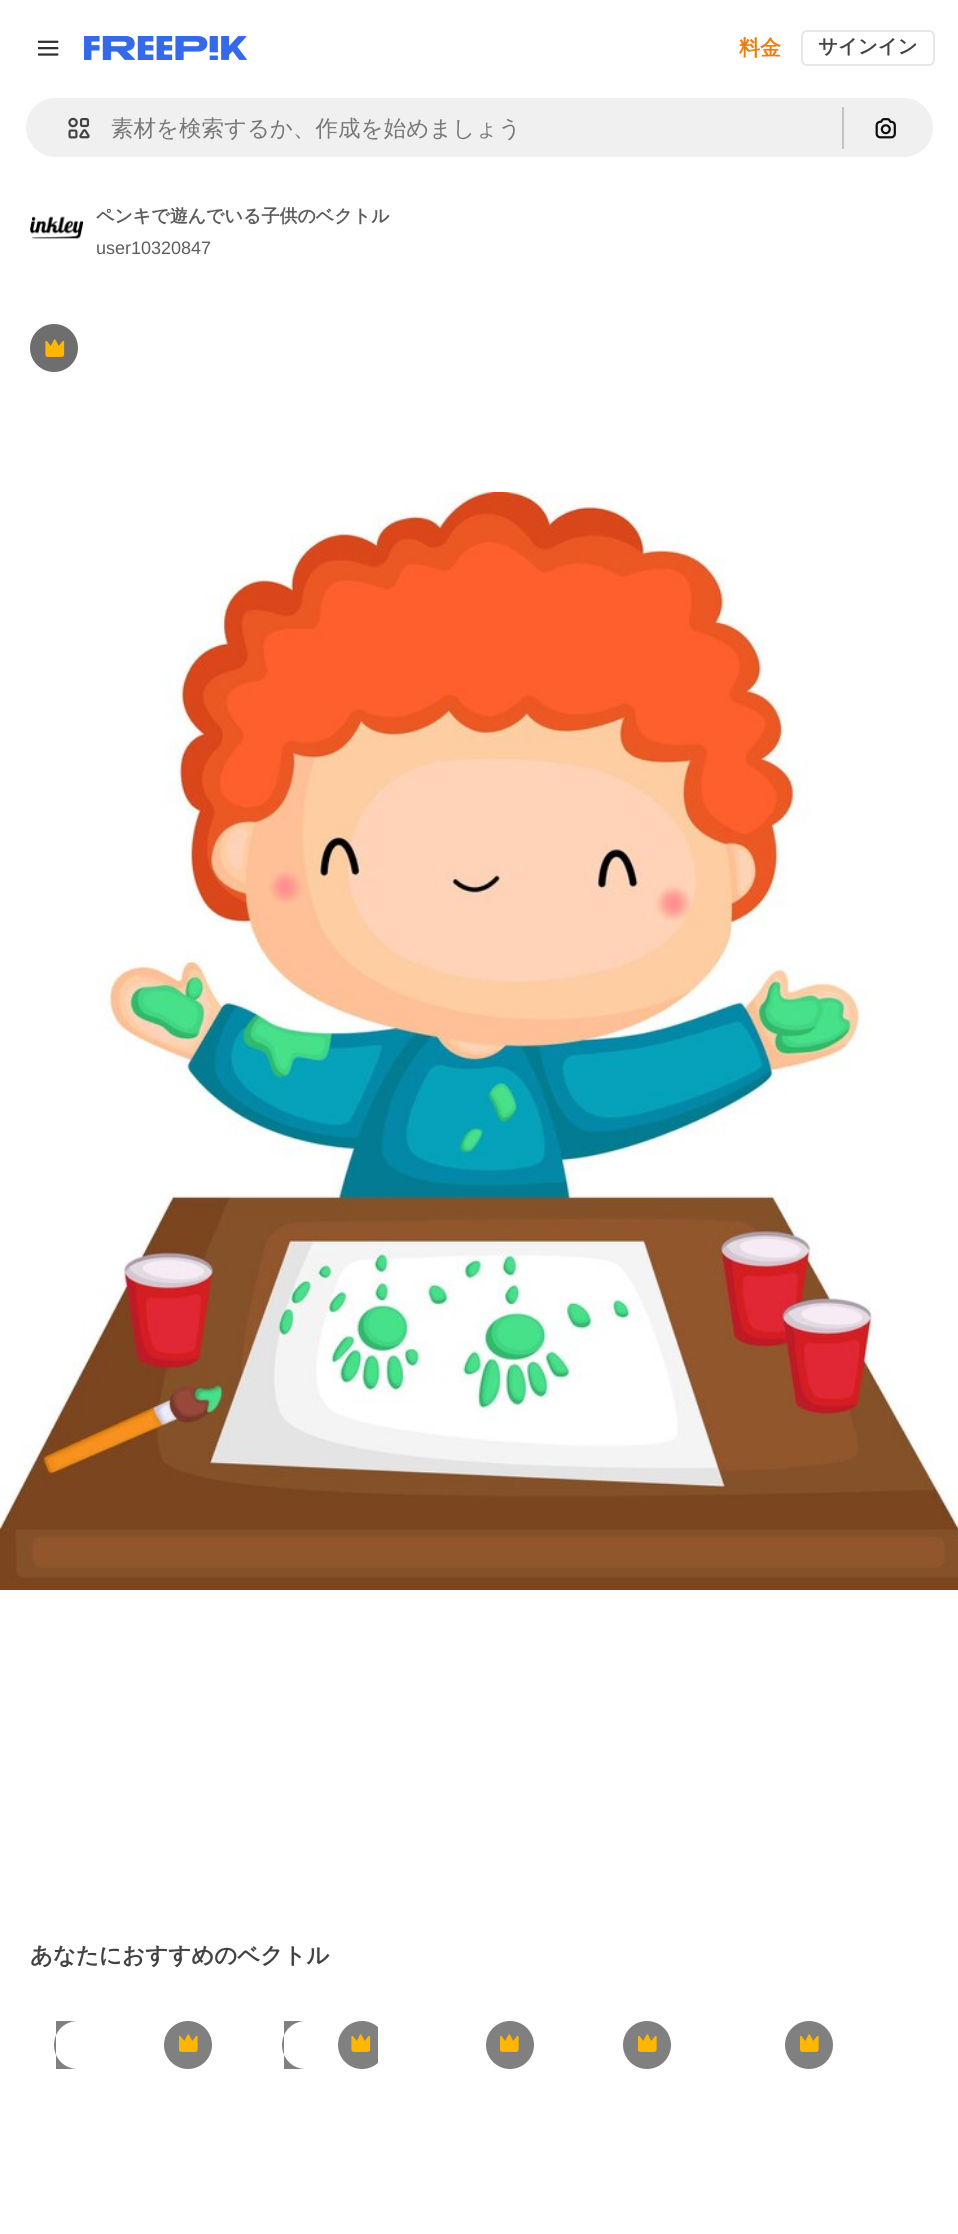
import math
import cairo

surface = cairo.ImageSurface(cairo.Format.RGB24, 958, 2234)
ctx = cairo.Context(surface)
options = cairo.FontOptions()
options.set_hint_metrics(cairo.HintMetrics.OFF)
options.set_hint_style(cairo.HintStyle.NONE)
ctx.set_font_options(options)
ctx.set_miter_limit(4)


def ink(r, g, b):
    ctx.set_source_rgb(r / 255, g / 255, b / 255)


def write(x, y, s, family, size, color, bold=False, italic=False):
    ctx.select_font_face(family, cairo.FontSlant.ITALIC if italic else cairo.FontSlant.NORMAL, cairo.FontWeight.BOLD if bold else cairo.FontWeight.NORMAL)
    ctx.set_font_size(size)
    ink(*color)
    ctx.move_to(x, y)
    ctx.show_text(s)


def block(x, y, w, h, *color):
    ink(*color)
    ctx.rectangle(x, y, w, h)
    ctx.fill()


def round_path(x, y, w, h, r):
    ctx.new_sub_path()
    for i, (u, v) in enumerate([(x + w - r, y + h - r), (x + r, y + h - r), (x + r, y + r), (x + w - r, y + r)]):
        ctx.arc(u, v, r, i * math.pi / 2, (i + 1) * math.pi / 2)
    ctx.close_path()


def paste(path, x, y, w, h):
    ctx.save()
    ctx.set_source_surface(cairo.ImageSurface.create_from_png(path), x, y)
    ctx.rectangle(x, y, w, h)
    ctx.fill()
    ctx.restore()


s1 = dict(family="WenQuanYi Zen Hei", size=21, color=(234, 126, 17), bold=True)
s2 = dict(family="WenQuanYi Zen Hei", size=19.5, color=(66, 66, 66), bold=True)
s3 = dict(family="WenQuanYi Zen Hei Medium", size=22.5, color=(119, 119, 119))
s4 = dict(family="WenQuanYi Zen Hei", size=18, color=(92, 92, 92), bold=True)
s5 = dict(family="Liberation Sans", size=18, color=(92, 92, 92))
s6 = dict(family="WenQuanYi Zen Hei", size=22.5, color=(66, 66, 66), bold=True)

ink(255, 255, 255)
ctx.paint()
paste("pic1.png", 38, 40, 21, 16)
paste("pic2.png", 84, 36, 163, 24)
write(739, 55, "料金", **s1)
round_path(802, 31, 132, 34, 5)
ink(231, 231, 231)
ctx.stroke()
write(818, 53, "サインイン", **s2)
ink(240, 240, 240)
round_path(25, 97, 909, 61, 30.5)
ctx.fill_preserve()
ink(255, 255, 255)
ctx.stroke()
paste("pic3.png", 68, 117, 22, 22)
write(111, 136, "素材を検索するか、作成を始めましょう", **s3)
block(842, 107, 2, 42, 195, 195, 195)
paste("pic4.png", 875, 118, 21, 21)
paste("pic5.png", 30, 216, 54, 23)
write(96, 222, "ペンキで遊んでいる子供のベクトル", **s4)
write(96, 254, "user10320847", **s5)
ink(110, 110, 110)
ctx.new_path()
ctx.arc(54, 348, 24, 0, 2 * math.pi)
ctx.fill()
paste("pic6.png", 45, 339, 20, 18)
paste("pic7.png", 0, 492, 958, 1098)
write(30, 1963, "あなたにおすすめのベクトル", **s6)
ink(128, 128, 128)
ctx.new_path()
ctx.move_to(78, 2021)
ctx.line_to(56, 2021)
ctx.line_to(56, 2069)
ctx.line_to(78, 2069)
ctx.curve_to(64.5, 2069, 54, 2058.5, 54, 2045)
ctx.curve_to(54, 2031.5, 64.5, 2021, 78, 2021)
ctx.close_path()
ctx.fill()
ctx.arc(188, 2045, 24, 0, 2 * math.pi)
ctx.fill()
paste("pic8.png", 179, 2034, 19, 18)
ctx.new_path()
ctx.move_to(306, 2021)
ctx.line_to(284, 2021)
ctx.line_to(284, 2069)
ctx.line_to(306, 2069)
ctx.curve_to(292.5, 2069, 282, 2058.5, 282, 2045)
ctx.curve_to(282, 2031.5, 292.5, 2021, 306, 2021)
ctx.close_path()
ctx.fill()
ctx.save()
round_path(314, 1997, 64, 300, 24)
ctx.clip()
ctx.arc(362, 2045, 24, 0, 2 * math.pi)
ctx.fill()
ctx.restore()
paste("pic9.png", 351, 2034, 20, 18)
ctx.arc(510, 2045, 24, 0, 2 * math.pi)
ctx.fill()
paste("pic8.png", 500, 2034, 19, 18)
ctx.arc(647, 2045, 24, 0, 2 * math.pi)
ctx.fill()
paste("pic8.png", 638, 2034, 19, 18)
ctx.arc(809, 2045, 24, 0, 2 * math.pi)
ctx.fill()
paste("pic8.png", 800, 2034, 19, 18)
surface.write_to_png("screenshot.png")
